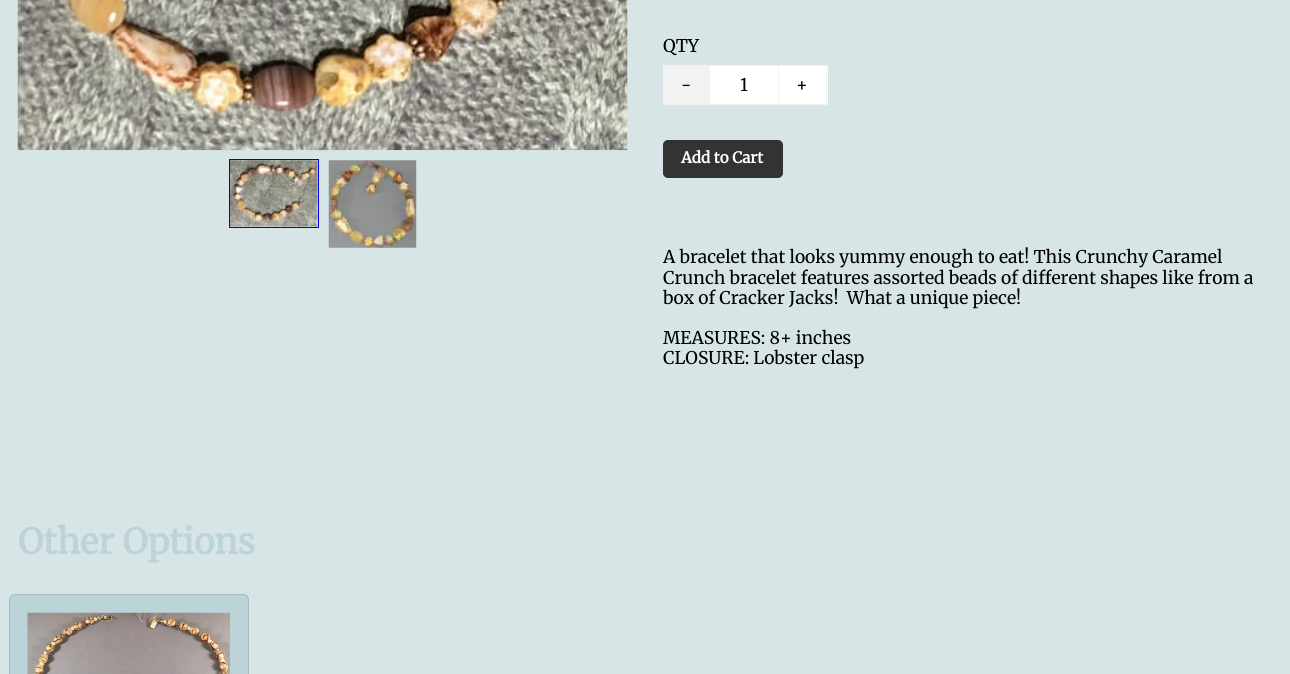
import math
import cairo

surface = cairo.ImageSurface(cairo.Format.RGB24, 1290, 674)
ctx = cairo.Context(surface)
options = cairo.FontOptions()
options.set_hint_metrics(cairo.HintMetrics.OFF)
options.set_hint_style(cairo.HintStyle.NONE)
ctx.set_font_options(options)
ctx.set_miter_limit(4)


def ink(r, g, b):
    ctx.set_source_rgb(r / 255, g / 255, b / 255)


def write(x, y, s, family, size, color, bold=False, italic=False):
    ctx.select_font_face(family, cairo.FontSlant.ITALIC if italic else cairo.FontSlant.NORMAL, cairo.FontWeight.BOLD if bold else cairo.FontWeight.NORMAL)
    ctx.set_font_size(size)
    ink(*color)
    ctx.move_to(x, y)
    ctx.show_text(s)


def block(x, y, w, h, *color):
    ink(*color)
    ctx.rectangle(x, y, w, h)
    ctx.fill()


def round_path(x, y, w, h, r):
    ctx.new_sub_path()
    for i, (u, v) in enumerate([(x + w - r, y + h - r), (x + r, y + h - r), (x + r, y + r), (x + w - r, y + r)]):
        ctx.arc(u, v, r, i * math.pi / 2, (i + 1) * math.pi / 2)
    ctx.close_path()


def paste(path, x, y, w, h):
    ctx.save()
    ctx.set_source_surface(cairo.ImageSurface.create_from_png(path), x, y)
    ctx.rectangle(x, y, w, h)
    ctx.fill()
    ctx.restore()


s1 = dict(family="Merriweather Light", size=17.5, color=(0, 0, 0))
s2 = dict(family="Merriweather", size=15.25, color=(255, 255, 255), bold=True)
s3 = dict(family="Merriweather", size=35, color=(188, 211, 215), bold=True)

ink(215, 229, 231)
ctx.paint()
paste("pic1.png", 17, 0, 611, 151)
ctx.rectangle(229.5, 159.5, 89, 68)
ink(0, 0, 238)
ctx.set_line_width(1)
ctx.stroke()
paste("pic2.png", 230, 160, 88, 67)
paste("pic3.png", 328, 160, 89, 88)
write(663, 52, "QTY", **s1)
block(663, 65, 46, 40, 242, 242, 242)
write(681, 91, "-", **s1)
ink(255, 255, 255)
ctx.rectangle(709.5, 65.5, 69, 39)
ctx.fill_preserve()
ink(242, 242, 242)
ctx.stroke()
write(740, 91, "1", **s1)
block(779, 66, 49, 38, 255, 255, 255)
block(779, 65, 49, 1, 242, 242, 242)
block(826, 65, 1, 40, 242, 242, 242)
block(779, 104, 49, 1, 242, 242, 242)
write(796, 91, "+", **s1)
ink(51, 51, 51)
round_path(663.5, 140.5, 119, 37, 4.5)
ctx.fill_preserve()
ctx.stroke()
write(681, 163, "Add to Cart", **s2)
write(663, 263, "A bracelet that looks yummy enough to eat! This Crunchy Caramel", **s1)
write(663, 284, "Crunch bracelet features assorted beads of different shapes like from a", **s1)
write(663, 304, "box of Cracker Jacks!  What a unique piece!", **s1)
write(663, 344, "MEASURES: 8+ inches", **s1)
write(663, 364, "CLOSURE: Lobster clasp", **s1)
write(18, 554, "Other Options", **s3)
round_path(9, 594, 240, 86, 6)
ctx.fill()
round_path(9.5, 594.5, 239, 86, 5.5)
ctx.set_source_rgba(0.478, 0.478, 0.478, 0.3)
ctx.stroke()
paste("pic4.png", 27, 612, 203, 62)
surface.write_to_png("screenshot.png")
